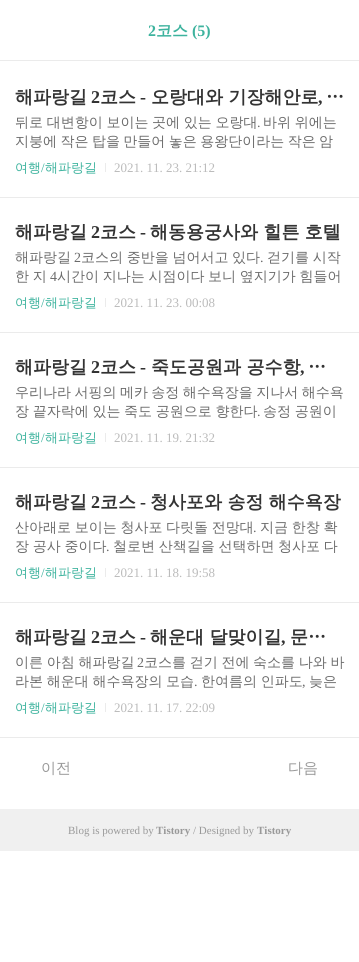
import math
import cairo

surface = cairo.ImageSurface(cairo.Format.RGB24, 359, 962)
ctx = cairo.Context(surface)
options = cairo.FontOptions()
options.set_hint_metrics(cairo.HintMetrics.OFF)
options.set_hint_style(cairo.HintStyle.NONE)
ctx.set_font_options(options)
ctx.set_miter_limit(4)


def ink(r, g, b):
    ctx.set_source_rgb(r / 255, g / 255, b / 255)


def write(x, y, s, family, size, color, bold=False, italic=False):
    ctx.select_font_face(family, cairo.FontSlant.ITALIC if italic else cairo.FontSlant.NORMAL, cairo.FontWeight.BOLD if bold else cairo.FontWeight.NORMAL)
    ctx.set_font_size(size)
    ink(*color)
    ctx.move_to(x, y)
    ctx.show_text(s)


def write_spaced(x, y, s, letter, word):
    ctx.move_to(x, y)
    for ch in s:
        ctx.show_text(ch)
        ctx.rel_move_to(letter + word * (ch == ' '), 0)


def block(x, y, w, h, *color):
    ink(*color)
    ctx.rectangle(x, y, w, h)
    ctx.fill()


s1 = dict(family="Liberation Serif", size=16, color=(61, 179, 158), bold=True)
s2 = dict(family="WenQuanYi Zen Hei", size=16, color=(61, 179, 158), bold=True)
s3 = dict(family="WenQuanYi Zen Hei", size=18, color=(51, 51, 51), bold=True)
s4 = dict(family="Liberation Serif", size=18, color=(51, 51, 51), bold=True)
s5 = dict(family="Liberation Serif", size=14, color=(107, 107, 107))
s6 = dict(family="WenQuanYi Zen Hei Medium", size=13, color=(61, 179, 158))
s7 = dict(family="Liberation Serif", size=13, color=(61, 179, 158))
s8 = dict(family="Liberation Serif", size=13, color=(187, 187, 187))
s9 = dict(family="WenQuanYi Zen Hei Medium", size=14, color=(107, 107, 107))
s10 = dict(family="WenQuanYi Zen Hei Medium", size=15, color=(153, 153, 153))
s11 = dict(family="Liberation Serif", size=11, color=(153, 153, 153))
s12 = dict(family="Liberation Serif", size=11, color=(153, 153, 153), bold=True)

ink(255, 255, 255)
ctx.paint()
write(148, 36, "2", **s1)
write(156, 36, "코스", **s2)
write(192, 36, "(5)", **s1)
block(0, 60, 359, 1, 235, 235, 235)
block(0, 197, 359, 1, 235, 235, 235)
write(15, 103, "해파랑길", **s3)
write(91, 103, "2", **s4)
write(100, 103, "코스", **s3)
write(151, 103, "오랑대와 기장해안로", **s3)
write(326, 103, "…", **s3)
write(140, 103, "-", **s4)
write(318, 103, ",", **s4)
ctx.select_font_face("WenQuanYi Zen Hei Medium")
ctx.set_font_size(14)
ink(107, 107, 107)
write_spaced(15, 127, "뒤로 대변항이 보이는 곳에 있는 오랑대", 0, -0.5)
write(257, 127, ".", **s5)
ctx.select_font_face("WenQuanYi Zen Hei Medium")
write_spaced(263, 127, "바위 위에는", 0, -0.5)
write_spaced(15, 146, "지붕에 작은 탑을 만들어 놓은 용왕단이라는 작은 암", 0, -0.75)
write(15, 172, "여행 해파랑길", **s6)
write(41, 172, "/", **s7)
block(105, 163, 1, 9, 235, 235, 235)
write(114, 172, "2021. 11. 23. 21:12", **s8)
block(0, 332, 359, 1, 235, 235, 235)
write(15, 238, "해파랑길", **s3)
write(91, 238, "2", **s4)
write(100, 238, "코스", **s3)
write(140, 238, "-", **s4)
write(150, 238, "해동용궁사와 힐튼 호텔", **s3)
write(15, 262, "해파랑길", **s9)
write(74, 262, "2", **s5)
ctx.select_font_face("WenQuanYi Zen Hei Medium")
write_spaced(81, 262, "코스의 중반을 넘어서고 있다", 0, -0.5)
write(260, 262, ".", **s5)
ctx.select_font_face("WenQuanYi Zen Hei Medium")
write_spaced(267, 262, "걷기를 시작", 0, -0.5)
write_spaced(15, 281, "한 지", 0, -0.5)
write(50, 281, "4", **s5)
ctx.select_font_face("WenQuanYi Zen Hei Medium")
write_spaced(57, 281, "시간이 지나는 시점이다 보니 옆지기가 힘들어", 0, -0.5)
write(15, 307, "여행 해파랑길", **s6)
write(41, 307, "/", **s7)
block(105, 298, 1, 9, 235, 235, 235)
write(114, 307, "2021. 11. 23. 00:08", **s8)
block(0, 467, 359, 1, 235, 235, 235)
write(15, 373, "해파랑길", **s3)
write(91, 373, "2", **s4)
write(100, 373, "코스", **s3)
write(151, 373, "죽도공원과 공수항", **s3)
write(308, 373, "…", **s3)
write(140, 373, "-", **s4)
write(300, 373, ",", **s4)
ctx.select_font_face("WenQuanYi Zen Hei Medium")
ctx.set_font_size(14)
ink(107, 107, 107)
write_spaced(15, 397, "우리나라 서핑의 메카 송정 해수욕장을 지나서 해수욕", 0, -0.75)
write_spaced(15, 416, "장 끝자락에 있는 죽도 공원으로 향한다", 0, -0.5)
write(257, 416, ".", **s5)
ctx.select_font_face("WenQuanYi Zen Hei Medium")
write_spaced(263, 416, "송정 공원이", 0, -0.5)
write(15, 442, "여행 해파랑길", **s6)
write(41, 442, "/", **s7)
block(105, 433, 1, 9, 235, 235, 235)
write(114, 442, "2021. 11. 19. 21:32", **s8)
block(0, 602, 359, 1, 235, 235, 235)
write(15, 508, "해파랑길", **s3)
write(91, 508, "2", **s4)
write(100, 508, "코스", **s3)
write(140, 508, "-", **s4)
write(150, 508, "청사포와 송정 해수욕장", **s3)
ctx.select_font_face("WenQuanYi Zen Hei Medium")
ctx.set_font_size(14)
ink(107, 107, 107)
write_spaced(15, 532, "산아래로 보이는 청사포 다릿돌 전망대", 0, -0.5)
write(253, 532, ".", **s5)
ctx.select_font_face("WenQuanYi Zen Hei Medium")
write_spaced(260, 532, "지금 한창 확", 0, -0.5)
write_spaced(15, 551, "장 공사 중이다", 0, -0.5)
write(106, 551, ".", **s5)
ctx.select_font_face("WenQuanYi Zen Hei Medium")
write_spaced(113, 551, "철로변 산책길을 선택하면 청사포 다", 0, -0.5)
write(15, 577, "여행 해파랑길", **s6)
write(41, 577, "/", **s7)
block(105, 568, 1, 9, 235, 235, 235)
write(114, 577, "2021. 11. 18. 19:58", **s8)
block(0, 737, 359, 1, 235, 235, 235)
write(15, 643, "해파랑길", **s3)
write(91, 643, "2", **s4)
write(100, 643, "코스", **s3)
write(140, 643, "-", **s4)
write(150, 643, "해운대 달맞이길", **s3)
write(290, 643, "문…", **s3)
write(281, 643, ",", **s4)
ctx.select_font_face("WenQuanYi Zen Hei Medium")
ctx.set_font_size(14)
ink(107, 107, 107)
write_spaced(15, 667, "이른 아침 해파랑길", 0, -0.5)
write(137, 667, "2", **s5)
ctx.select_font_face("WenQuanYi Zen Hei Medium")
write_spaced(144, 667, "코스를 걷기 전에 숙소를 나와 바", 0, -0.5)
write_spaced(15, 686, "라본 해운대 해수욕장의 모습", 0, -0.5)
write(194, 686, ".", **s5)
ctx.select_font_face("WenQuanYi Zen Hei Medium")
write_spaced(201, 686, "한여름의 인파도", 0, -0.5)
write(302, 686, ",", **s5)
write(309, 686, "늦은", **s9)
write(15, 712, "여행 해파랑길", **s6)
write(41, 712, "/", **s7)
block(105, 703, 1, 9, 235, 235, 235)
write(114, 712, "2021. 11. 17. 22:09", **s8)
write(41, 773, "이전", **s10)
write(288, 773, "다음", **s10)
block(0, 809, 359, 42, 240, 240, 240)
write(68, 834, "Blog is powered by", **s11)
write(156, 834, "Tistory", **s12)
write(193, 834, "/ Designed by", **s11)
write(257, 834, "Tistory", **s12)
surface.write_to_png("screenshot.png")
